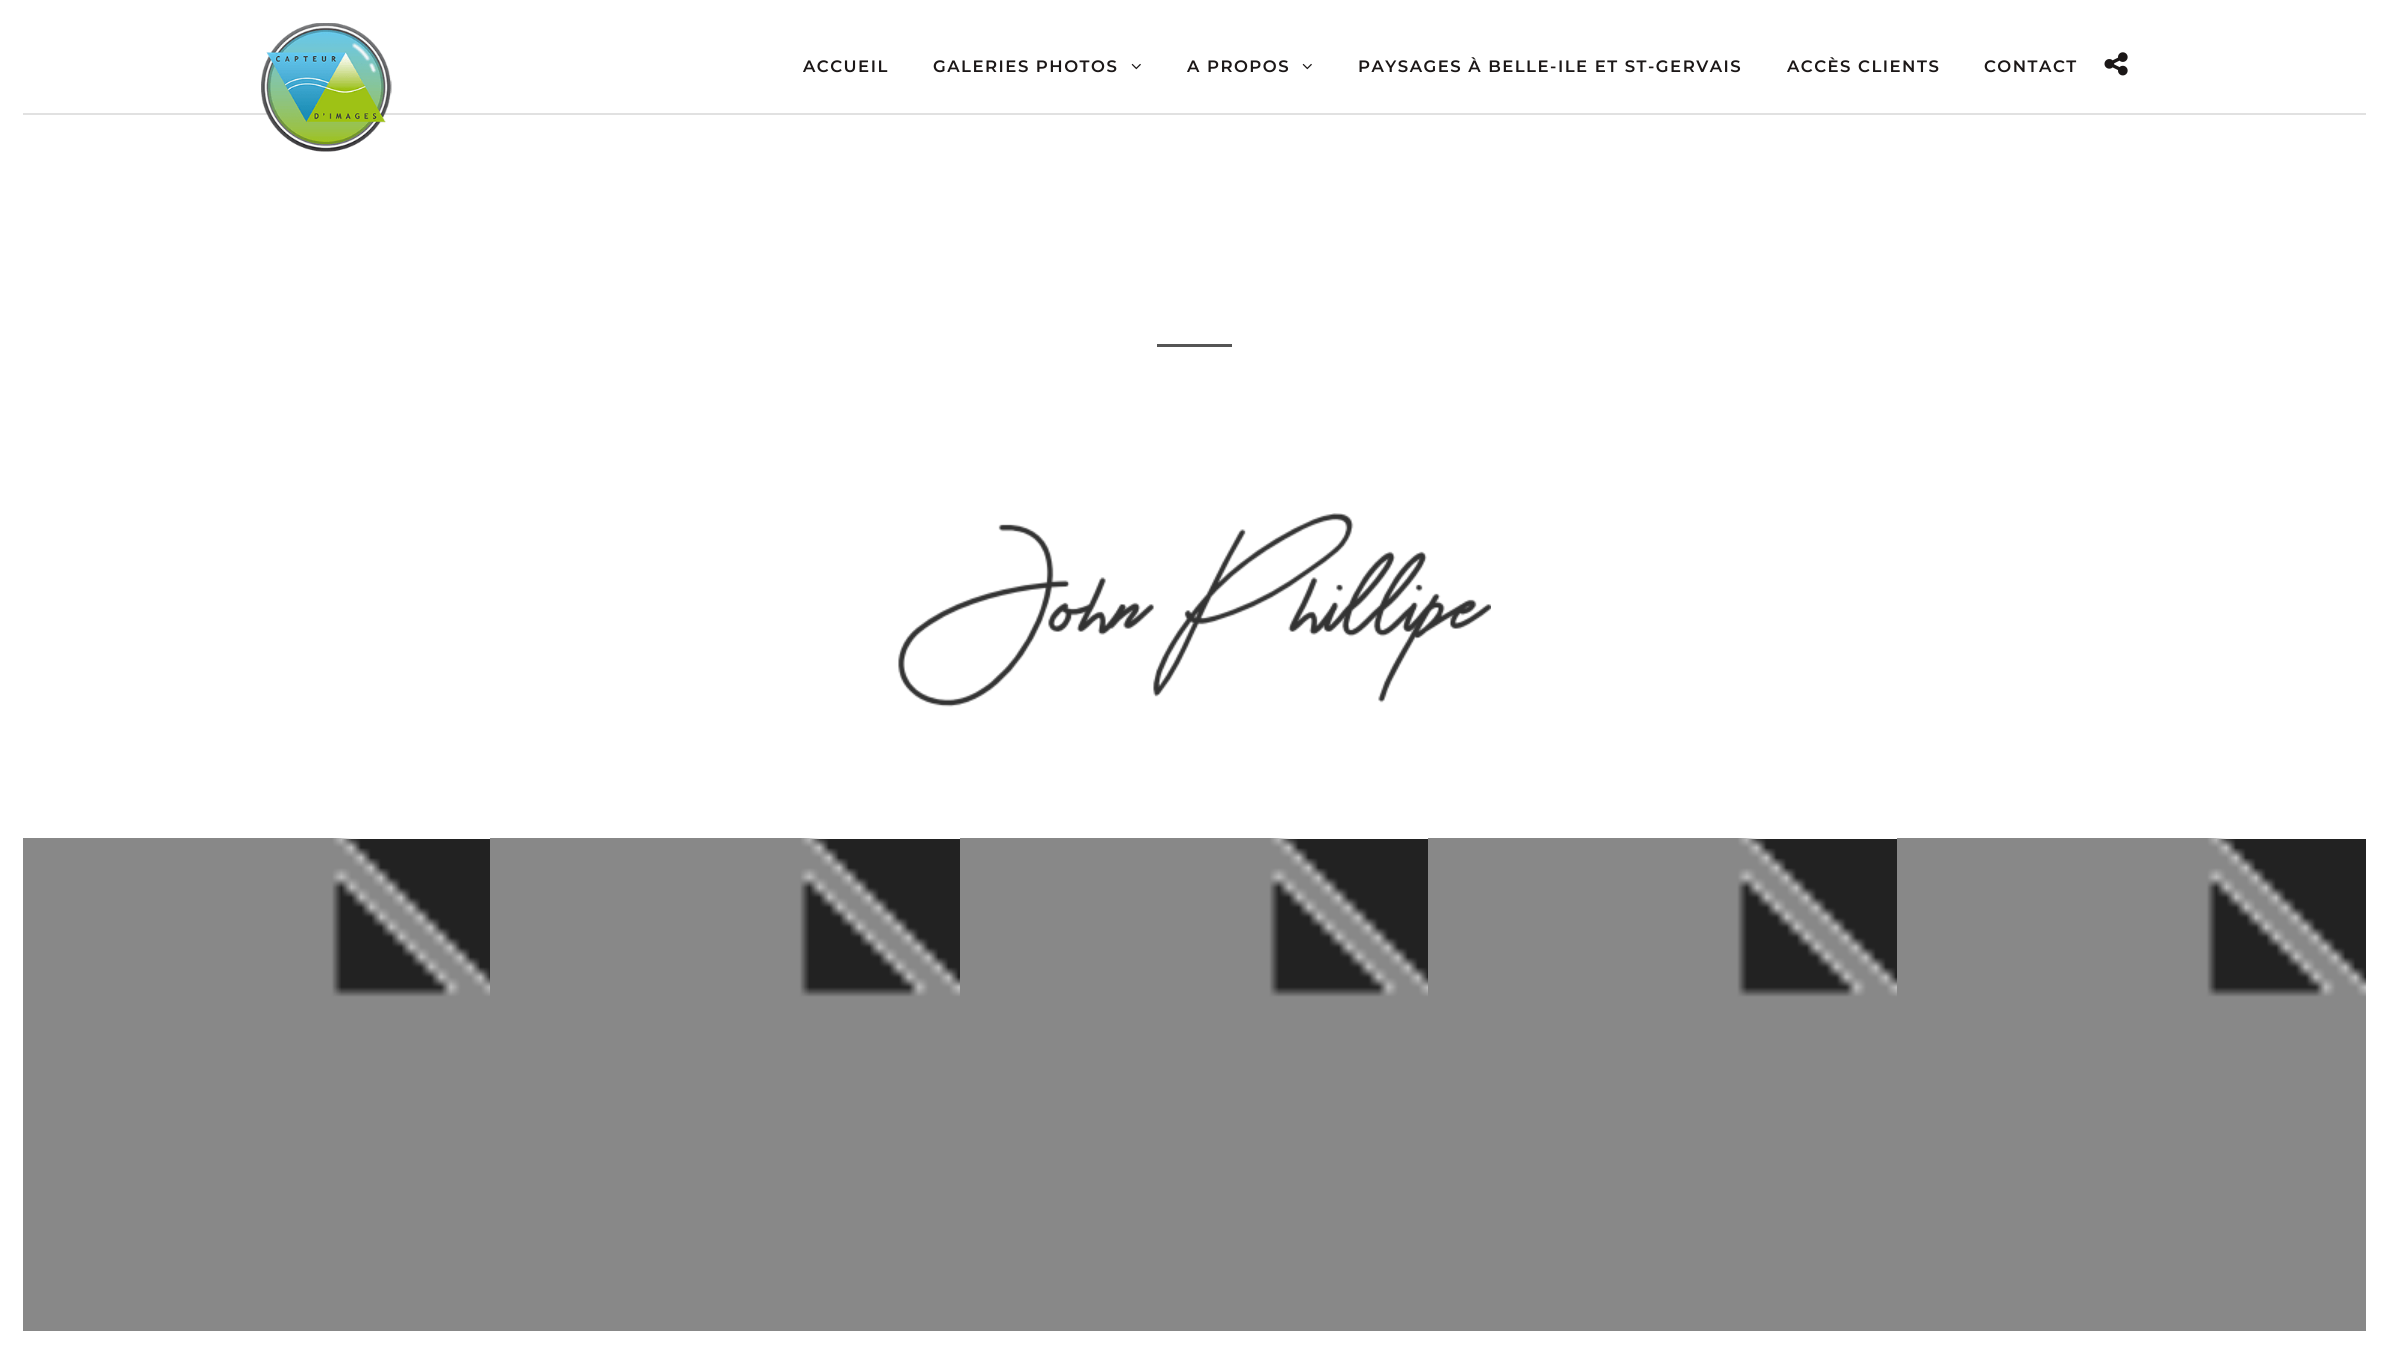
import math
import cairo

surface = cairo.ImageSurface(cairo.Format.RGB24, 2387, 1353)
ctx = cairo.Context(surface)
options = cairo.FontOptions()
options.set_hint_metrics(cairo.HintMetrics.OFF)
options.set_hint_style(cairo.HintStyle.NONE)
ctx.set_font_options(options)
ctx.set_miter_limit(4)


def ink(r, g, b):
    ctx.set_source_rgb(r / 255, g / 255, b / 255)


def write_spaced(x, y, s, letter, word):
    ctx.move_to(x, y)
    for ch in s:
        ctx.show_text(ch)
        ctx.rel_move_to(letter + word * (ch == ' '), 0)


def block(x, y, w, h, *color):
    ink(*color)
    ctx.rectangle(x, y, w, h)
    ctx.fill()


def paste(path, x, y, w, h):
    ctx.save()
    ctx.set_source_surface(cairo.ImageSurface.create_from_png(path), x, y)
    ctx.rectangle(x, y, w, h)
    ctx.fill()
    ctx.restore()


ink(34, 34, 34)
ctx.paint()
block(0, 0, 23, 1353, 255, 255, 255)
block(23, 0, 2343, 113, 255, 255, 255)
block(23, 113, 2343, 2, 225, 225, 225)
block(23, 115, 2343, 724, 255, 255, 255)
paste("pic1.png", 261, 23, 131, 129)
ctx.select_font_face("Montserrat SemiBold")
ctx.set_font_size(16.5)
ink(27, 23, 23)
write_spaced(803, 72, "ACCUEIL", 1.5, 0)
write_spaced(933, 72, "GALERIES PHOTOS", 1.5, 0)
paste("pic2.png", 1131, 63, 10, 7)
write_spaced(1187, 72, "A PROPOS", 1.5, 0)
paste("pic2.png", 1302, 63, 10, 7)
write_spaced(1358, 72, "PAYSAGES À BELLE-ILE ET ST-GERVAIS", 1.5, 0)
write_spaced(1787, 72, "ACCÈS CLIENTS", 1.5, 0)
write_spaced(1984, 72, "CONTACT", 1.5, 0)
paste("pic3.png", 2104, 52, 24, 24)
block(1157, 344, 75, 3, 85, 85, 85)
paste("pic4.png", 898, 513, 593, 194)
paste("pic5.png", 23, 838, 467, 493)
paste("pic6.png", 490, 838, 470, 493)
paste("pic7.png", 960, 838, 468, 493)
paste("pic8.png", 1428, 838, 469, 493)
paste("pic9.png", 1897, 838, 469, 493)
block(2366, 0, 21, 1353, 255, 255, 255)
block(23, 1331, 2343, 22, 255, 255, 255)
surface.write_to_png("screenshot.png")
